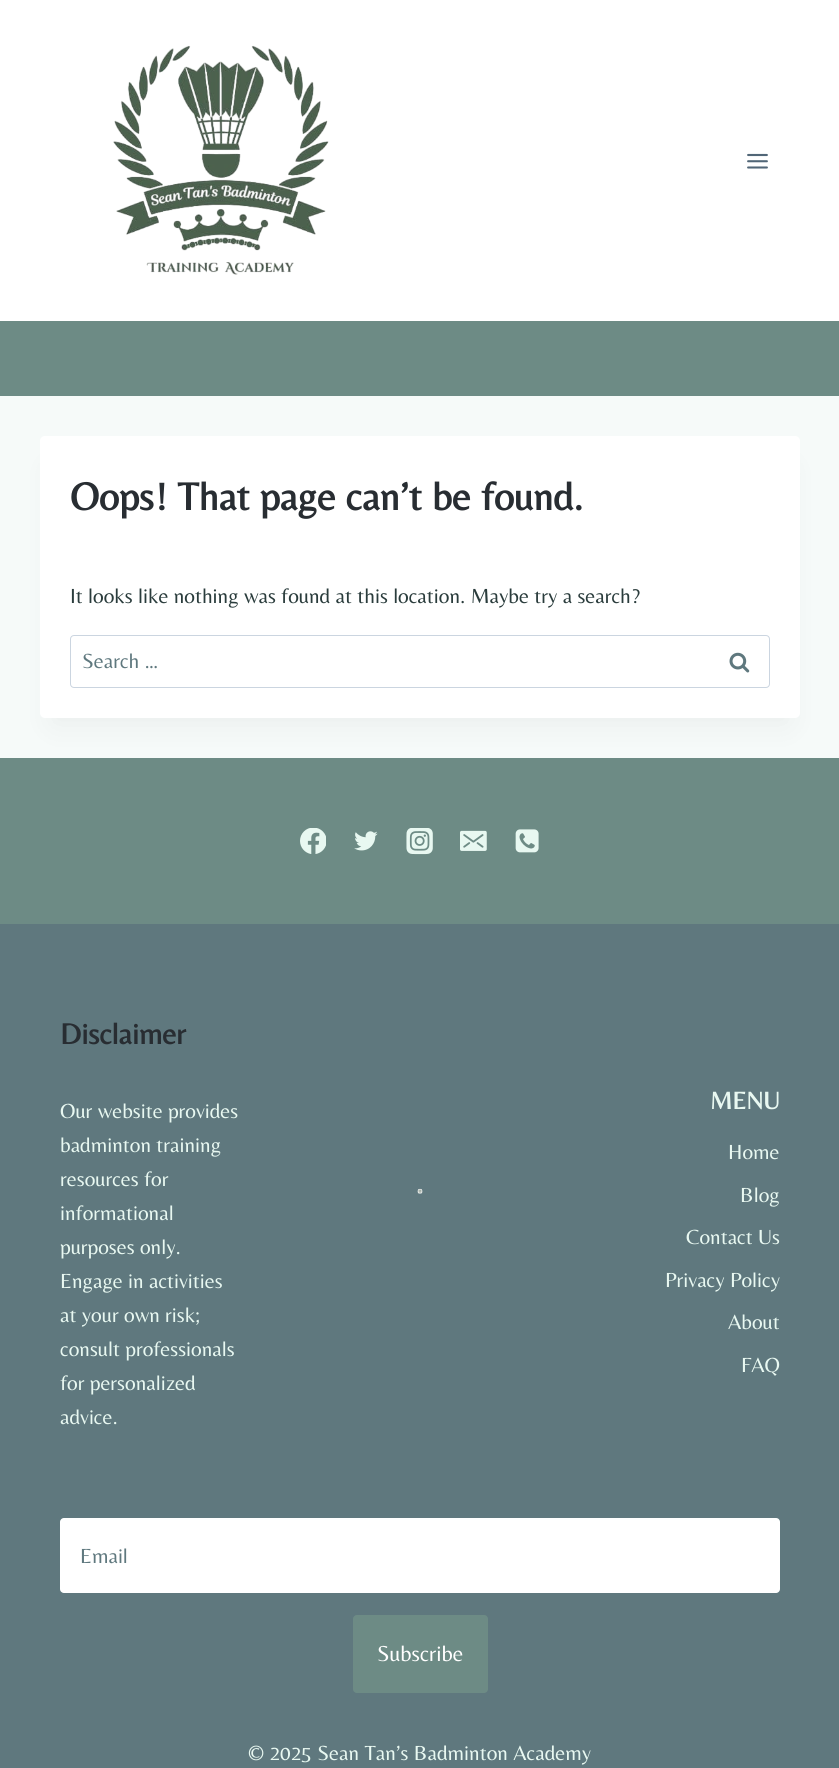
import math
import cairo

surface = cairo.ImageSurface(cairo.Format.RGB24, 839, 1768)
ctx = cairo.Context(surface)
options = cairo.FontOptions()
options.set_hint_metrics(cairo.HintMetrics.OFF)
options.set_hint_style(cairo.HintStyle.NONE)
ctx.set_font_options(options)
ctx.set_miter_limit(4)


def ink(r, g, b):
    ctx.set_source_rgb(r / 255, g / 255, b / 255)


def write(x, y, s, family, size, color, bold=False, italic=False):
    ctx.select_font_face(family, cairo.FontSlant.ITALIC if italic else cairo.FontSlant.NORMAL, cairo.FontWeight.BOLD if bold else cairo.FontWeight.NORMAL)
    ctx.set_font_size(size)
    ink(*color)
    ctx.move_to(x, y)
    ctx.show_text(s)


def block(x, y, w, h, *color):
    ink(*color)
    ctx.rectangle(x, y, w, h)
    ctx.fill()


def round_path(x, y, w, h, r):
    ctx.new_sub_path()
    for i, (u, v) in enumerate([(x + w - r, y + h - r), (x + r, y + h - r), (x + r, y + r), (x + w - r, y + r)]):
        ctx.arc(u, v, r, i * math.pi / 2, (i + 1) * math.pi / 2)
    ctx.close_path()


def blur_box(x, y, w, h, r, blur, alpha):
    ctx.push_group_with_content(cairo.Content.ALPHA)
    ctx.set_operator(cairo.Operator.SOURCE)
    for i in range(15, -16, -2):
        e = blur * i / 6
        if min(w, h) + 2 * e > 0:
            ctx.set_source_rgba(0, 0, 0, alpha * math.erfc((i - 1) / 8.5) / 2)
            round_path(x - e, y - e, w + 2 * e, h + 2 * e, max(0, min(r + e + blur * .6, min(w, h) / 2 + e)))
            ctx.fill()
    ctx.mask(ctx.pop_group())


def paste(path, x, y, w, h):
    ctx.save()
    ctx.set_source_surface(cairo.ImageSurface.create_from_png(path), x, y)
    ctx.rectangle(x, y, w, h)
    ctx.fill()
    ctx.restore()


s1 = dict(family="Belleza", size=40, color=(40, 45, 50), bold=True)
s2 = dict(family="Belleza", size=21.25, color=(42, 60, 60))
s3 = dict(family="Belleza", size=21.25, color=(95, 120, 126))
s4 = dict(family="Belleza", size=30, color=(40, 45, 50), bold=True)
s5 = dict(family="Belleza", size=21.25, color=(232, 248, 241))
s6 = dict(family="Belleza", size=25, color=(232, 248, 241), bold=True)
s7 = dict(family="Belleza", size=22.5, color=(255, 255, 255))

ink(246, 250, 249)
ctx.paint()
block(0, 0, 839, 321, 255, 255, 255)
block(0, 321, 839, 75, 109, 139, 133)
paste("pic1.png", 113, 45, 216, 230)
paste("pic2.png", 747, 153, 21, 16)
block(0, 758, 839, 166, 109, 139, 133)
ink(0, 0, 0)
blur_box(53, 468, 735, 256, 0, 15.5, 0.05)
ink(255, 255, 255)
round_path(40, 436, 760, 282, 5)
ctx.fill()
write(70, 510, "Oops! That page can’t be found.", **s1)
write(70, 603, "It looks like nothing was found at this location. Maybe try a search?", **s2)
round_path(70.5, 635.5, 699, 52, 3.5)
ink(203, 213, 224)
ctx.set_line_width(1)
ctx.stroke()
write(82, 668, "Search …", **s3)
paste("pic3.png", 729, 652, 21, 21)
block(0, 924, 839, 844, 95, 120, 126)
paste("pic4.png", 300, 828, 26, 26)
paste("pic5.png", 354, 831, 24, 20)
paste("pic6.png", 406, 828, 27, 27)
paste("pic7.png", 460, 830, 27, 21)
paste("pic8.png", 515, 829, 24, 24)
write(60, 1044, "Disclaimer", **s4)
write(60, 1118, "Our website provides", **s5)
write(60, 1152, "badminton training", **s5)
write(60, 1186, "resources for", **s5)
write(60, 1220, "informational", **s5)
write(60, 1254, "purposes only.", **s5)
write(60, 1288, "Engage in activities", **s5)
write(60, 1322, "at your own risk;", **s5)
write(60, 1356, "consult professionals", **s5)
write(60, 1390, "for personalized", **s5)
write(60, 1424, "advice.", **s5)
paste("pic9.png", 417, 1188, 6, 6)
write(710, 1109, "MENU", **s6)
write(728, 1159, "Home", **s5)
write(740, 1202, "Blog", **s5)
write(686, 1244, "Contact Us", **s5)
write(665, 1287, "Privacy Policy", **s5)
write(728, 1329, "About", **s5)
write(741, 1372, "FAQ", **s5)
ink(255, 255, 255)
round_path(60, 1518, 720, 75, 4)
ctx.fill()
write(80, 1563, "Email", **s3)
ink(109, 139, 133)
round_path(353, 1615, 135, 78, 4)
ctx.fill()
write(377, 1661, "Subscribe", **s7)
write(248, 1760, "© 2025 Sean Tan’s Badminton Academy", **s5)
surface.write_to_png("screenshot.png")
